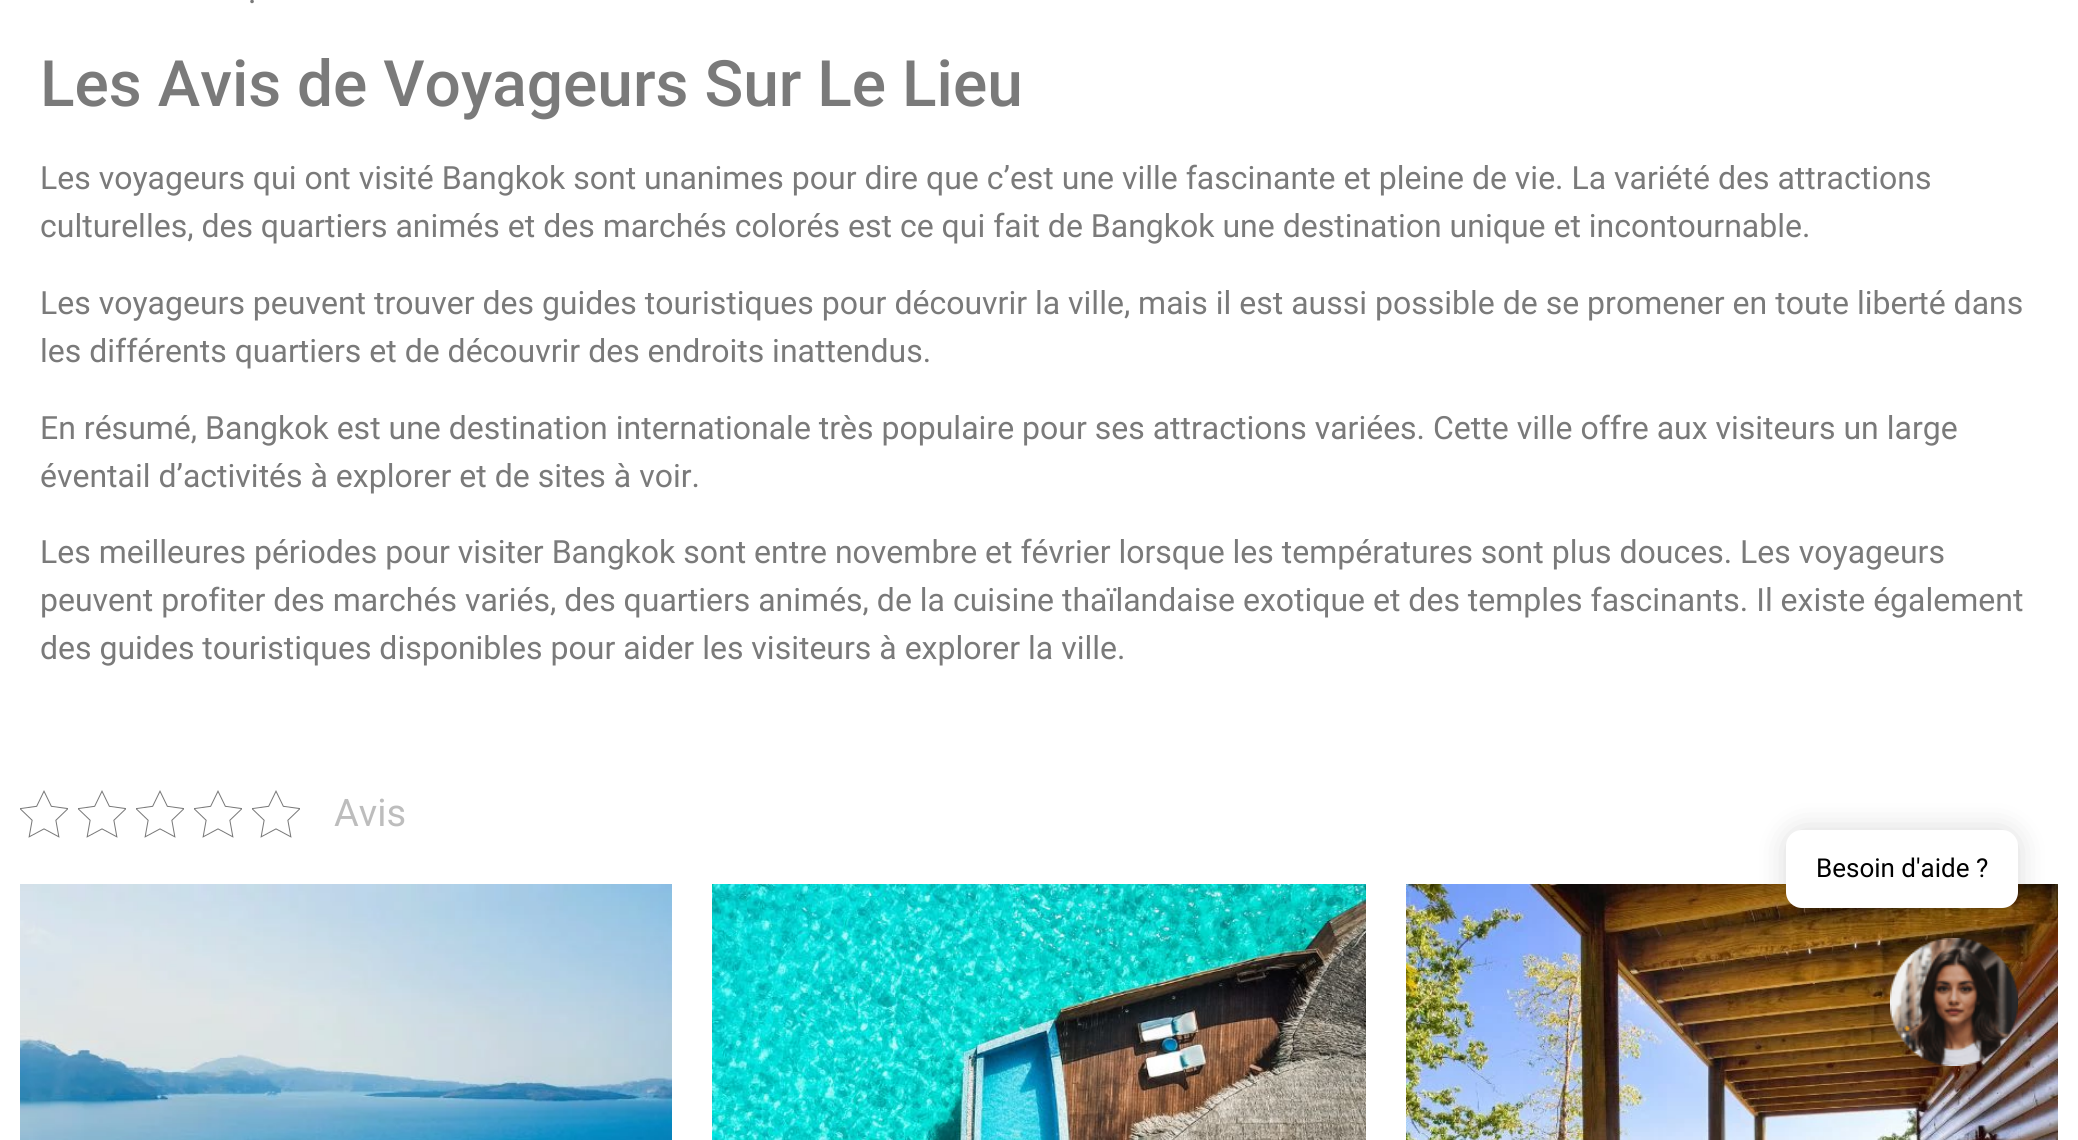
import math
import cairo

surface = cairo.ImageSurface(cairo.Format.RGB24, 2078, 1140)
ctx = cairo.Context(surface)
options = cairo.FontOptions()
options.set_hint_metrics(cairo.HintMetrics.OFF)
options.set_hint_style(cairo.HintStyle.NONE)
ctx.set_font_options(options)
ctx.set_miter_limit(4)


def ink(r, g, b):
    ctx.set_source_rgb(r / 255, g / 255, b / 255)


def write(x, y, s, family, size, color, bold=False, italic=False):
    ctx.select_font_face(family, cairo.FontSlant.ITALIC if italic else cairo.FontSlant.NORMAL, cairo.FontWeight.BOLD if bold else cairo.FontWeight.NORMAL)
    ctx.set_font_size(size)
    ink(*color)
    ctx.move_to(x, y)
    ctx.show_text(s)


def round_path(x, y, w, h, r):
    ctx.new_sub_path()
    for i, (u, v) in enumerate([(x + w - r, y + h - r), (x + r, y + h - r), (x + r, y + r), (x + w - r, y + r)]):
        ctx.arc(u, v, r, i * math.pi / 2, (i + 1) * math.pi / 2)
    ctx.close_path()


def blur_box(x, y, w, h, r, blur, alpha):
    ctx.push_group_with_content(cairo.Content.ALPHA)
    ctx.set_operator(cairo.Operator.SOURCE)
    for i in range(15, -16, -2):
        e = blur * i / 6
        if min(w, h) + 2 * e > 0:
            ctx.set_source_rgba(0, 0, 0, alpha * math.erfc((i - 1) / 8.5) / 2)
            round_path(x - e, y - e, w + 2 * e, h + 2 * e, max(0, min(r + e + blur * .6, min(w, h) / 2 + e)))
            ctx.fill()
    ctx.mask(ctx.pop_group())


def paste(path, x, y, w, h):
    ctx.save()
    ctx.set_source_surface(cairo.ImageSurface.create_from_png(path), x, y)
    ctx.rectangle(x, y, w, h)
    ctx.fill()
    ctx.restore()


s1 = dict(family="Roboto", size=32, color=(122, 122, 122))
s2 = dict(family="Roboto Medium", size=64, color=(122, 122, 122))
s3 = dict(family="Roboto", size=38, color=(189, 189, 189))
s4 = dict(family="Roboto", size=26, color=(0, 0, 0))

ink(255, 255, 255)
ctx.paint()
write(248, 3, ".", **s1)
write(40, 106, "Les Avis de Voyageurs Sur Le Lieu", **s2)
write(40, 189, "Les voyageurs qui ont visité Bangkok sont unanimes pour dire que c’est une ville fascinante et pleine de vie. La variété des attractions", **s1)
write(40, 237, "culturelles, des quartiers animés et des marchés colorés est ce qui fait de Bangkok une destination unique et incontournable.", **s1)
write(40, 314, "Les voyageurs peuvent trouver des guides touristiques pour découvrir la ville, mais il est aussi possible de se promener en toute liberté dans", **s1)
write(40, 362, "les différents quartiers et de découvrir des endroits inattendus.", **s1)
write(40, 439, "En résumé, Bangkok est une destination internationale très populaire pour ses attractions variées. Cette ville offre aux visiteurs un large", **s1)
write(40, 487, "éventail d’activités à explorer et de sites à voir.", **s1)
write(40, 563, "Les meilleures périodes pour visiter Bangkok sont entre novembre et février lorsque les températures sont plus douces. Les voyageurs", **s1)
write(40, 611, "peuvent profiter des marchés variés, des quartiers animés, de la cuisine thaïlandaise exotique et des temples fascinants. Il existe également", **s1)
write(40, 659, "des guides touristiques disponibles pour aider les visiteurs à explorer la ville.", **s1)
paste("pic1.png", 20, 790, 48, 48)
paste("pic1.png", 78, 790, 48, 48)
paste("pic1.png", 136, 790, 48, 48)
paste("pic1.png", 194, 790, 48, 48)
paste("pic1.png", 252, 790, 48, 48)
write(334, 826, "Avis", **s3)
paste("pic2.png", 20, 884, 652, 256)
paste("pic3.png", 712, 884, 654, 256)
paste("pic4.png", 1406, 884, 652, 256)
ink(0, 0, 0)
blur_box(1786, 830, 232, 78, 16, 15, 0.15)
ink(255, 255, 255)
round_path(1786, 830, 232, 78, 16)
ctx.fill()
write(1816, 877, "Besoin d'aide ?", **s4)
paste("pic5.png", 1865, 919, 175, 172)
surface.write_to_png("screenshot.png")
